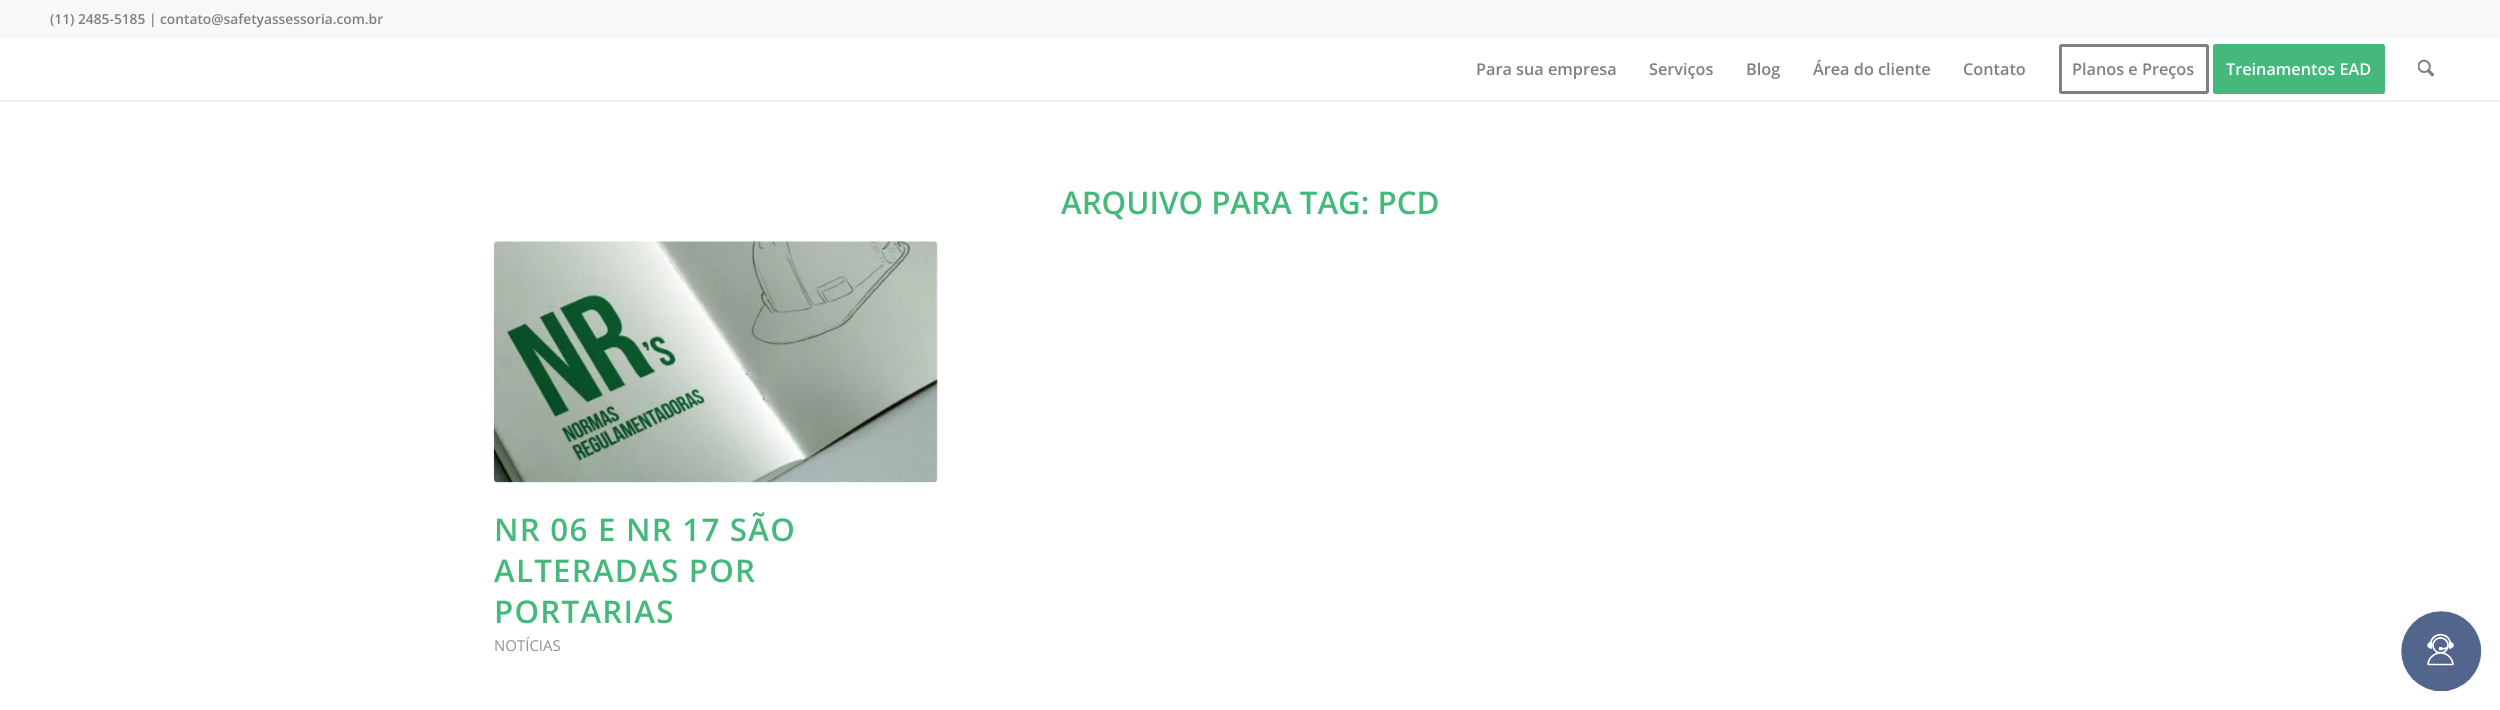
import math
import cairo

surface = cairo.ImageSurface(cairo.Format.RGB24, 2500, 710)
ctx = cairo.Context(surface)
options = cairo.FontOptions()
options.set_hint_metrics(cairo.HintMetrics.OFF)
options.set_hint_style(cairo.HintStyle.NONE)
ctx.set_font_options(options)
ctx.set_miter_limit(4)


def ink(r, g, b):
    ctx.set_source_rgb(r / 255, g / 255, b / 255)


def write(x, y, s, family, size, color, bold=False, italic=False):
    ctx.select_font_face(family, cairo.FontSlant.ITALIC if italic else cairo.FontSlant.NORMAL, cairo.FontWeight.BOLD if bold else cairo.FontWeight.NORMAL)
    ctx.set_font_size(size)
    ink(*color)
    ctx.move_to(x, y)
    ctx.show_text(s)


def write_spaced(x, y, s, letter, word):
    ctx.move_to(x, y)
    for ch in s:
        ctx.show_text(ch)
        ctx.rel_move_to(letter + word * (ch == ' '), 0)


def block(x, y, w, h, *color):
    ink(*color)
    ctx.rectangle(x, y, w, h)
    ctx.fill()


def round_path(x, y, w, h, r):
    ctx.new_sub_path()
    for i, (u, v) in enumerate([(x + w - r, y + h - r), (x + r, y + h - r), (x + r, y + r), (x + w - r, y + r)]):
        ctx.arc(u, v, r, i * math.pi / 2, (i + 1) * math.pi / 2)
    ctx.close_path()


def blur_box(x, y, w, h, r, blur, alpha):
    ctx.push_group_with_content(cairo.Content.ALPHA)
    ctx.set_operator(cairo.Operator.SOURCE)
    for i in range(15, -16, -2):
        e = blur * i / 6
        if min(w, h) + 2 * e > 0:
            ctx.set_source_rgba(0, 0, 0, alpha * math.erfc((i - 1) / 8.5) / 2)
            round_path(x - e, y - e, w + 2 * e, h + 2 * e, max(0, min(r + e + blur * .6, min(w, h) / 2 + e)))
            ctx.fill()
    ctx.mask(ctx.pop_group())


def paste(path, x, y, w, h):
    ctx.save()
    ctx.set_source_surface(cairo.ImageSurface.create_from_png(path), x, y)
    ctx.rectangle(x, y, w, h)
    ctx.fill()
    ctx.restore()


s1 = dict(family="Open Sans SemiBold", size=13.75, color=(128, 128, 128))
s2 = dict(family="Open Sans SemiBold", size=16.25, color=(128, 128, 128))
s3 = dict(family="Open Sans SemiBold", size=16.25, color=(255, 255, 255))
s4 = dict(family="Open Sans SemiBold", size=31.25, color=(69, 185, 123))
s5 = dict(family="Open Sans", size=15, color=(145, 145, 145))

ink(255, 255, 255)
ctx.paint()
ctx.save()
ctx.rectangle(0, 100, 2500, 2)
ctx.clip()
ink(0, 0, 0)
blur_box(-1, -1, 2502, 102, 0, 1, 0.1)
ctx.restore()
block(0, 0, 2500, 38, 248, 248, 248)
write(50, 24, "(11) 2485-5185 | contato@safetyassessoria.com.br", **s1)
write(1476, 75, "Para sua empresa", **s2)
write(1649, 75, "Serviços", **s2)
write(1746, 75, "Blog", **s2)
write(1813, 75, "Área do cliente", **s2)
write(1963, 75, "Contato", **s2)
round_path(2060.5, 45.5, 147, 47, 1)
ctx.set_line_width(3)
ctx.stroke()
write(2072, 75, "Planos e Preços", **s2)
ink(69, 185, 123)
round_path(2214.5, 45.5, 169, 47, 1)
ctx.fill_preserve()
ctx.stroke()
write(2226, 75, "Treinamentos EAD", **s3)
paste("pic1.png", 2418, 59, 16, 18)
write(1061, 214, "ARQUIVO PARA TAG: PCD", **s4)
ink(252, 252, 252)
round_path(494, 241, 444, 242, 4)
ctx.fill()
paste("pic2.png", 493, 241, 445, 242)
ink(69, 185, 123)
write_spaced(494, 541, "NR 06 E NR 17 SÃO", 1.25, 0)
write_spaced(494, 582, "ALTERADAS POR", 1.25, 0)
write_spaced(494, 623, "PORTARIAS", 1.25, 0)
write(494, 651, "NOTÍCIAS", **s5)
paste("pic3.png", 2401, 611, 81, 81)
surface.write_to_png("screenshot.png")
